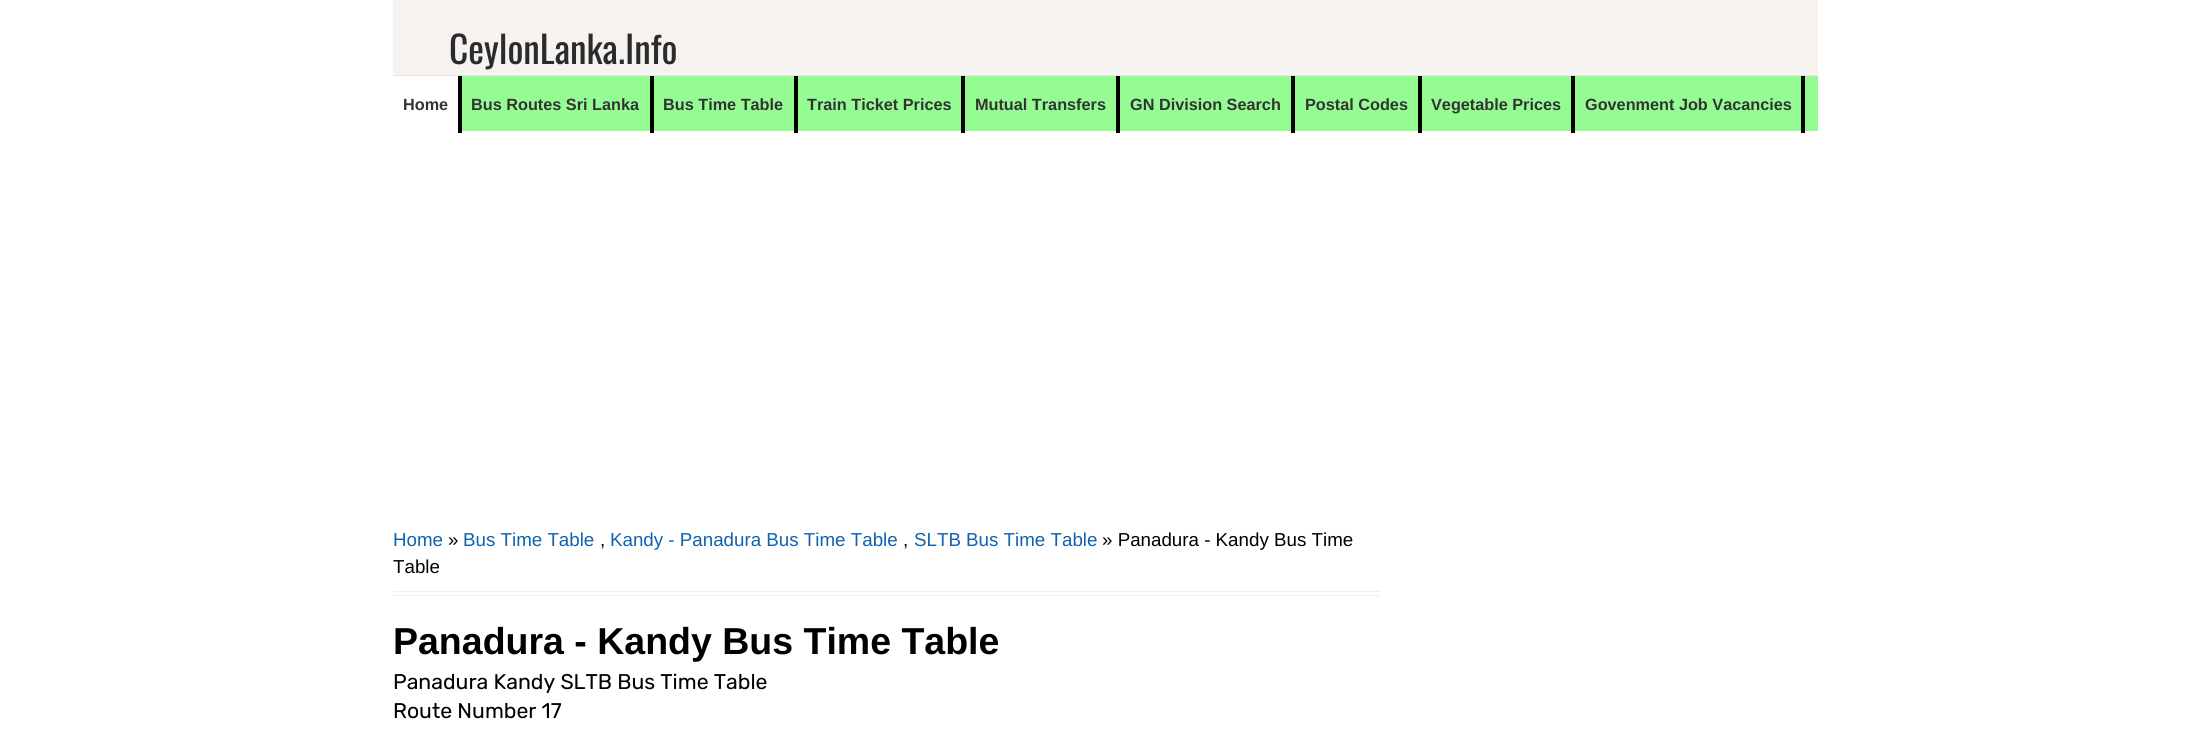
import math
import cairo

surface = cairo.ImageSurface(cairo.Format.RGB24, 2209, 735)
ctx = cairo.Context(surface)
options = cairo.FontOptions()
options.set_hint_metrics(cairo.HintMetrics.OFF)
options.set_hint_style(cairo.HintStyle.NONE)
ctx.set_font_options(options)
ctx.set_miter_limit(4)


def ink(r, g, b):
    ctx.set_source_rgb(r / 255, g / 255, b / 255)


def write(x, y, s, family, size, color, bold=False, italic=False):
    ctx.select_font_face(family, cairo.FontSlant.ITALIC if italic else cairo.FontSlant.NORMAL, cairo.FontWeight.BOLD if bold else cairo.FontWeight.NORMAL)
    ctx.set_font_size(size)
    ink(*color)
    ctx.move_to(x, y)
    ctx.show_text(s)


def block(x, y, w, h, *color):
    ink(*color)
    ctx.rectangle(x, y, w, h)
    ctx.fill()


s1 = dict(family="Oswald", size=37.5, color=(43, 43, 43))
s2 = dict(family="Liberation Sans", size=16.25, color=(51, 51, 51), bold=True)
s3 = dict(family="Liberation Sans", size=18.75, color=(14, 99, 176))
s4 = dict(family="Liberation Sans", size=18.75, color=(0, 0, 0))
s5 = dict(family="Liberation Sans", size=37.5, color=(0, 0, 0), bold=True)
s6 = dict(family="Rubik", size=21.25, color=(0, 0, 0))

ink(255, 255, 255)
ctx.paint()
block(393, 0, 1425, 75, 245, 242, 240)
write(449, 64, "CeylonLanka.Info", **s1)
block(462, 76, 1356, 55, 148, 252, 146)
block(393, 75, 1425, 1, 229, 229, 229)
block(458, 76, 4, 57, 5, 0, 0)
write(403, 110, "Home", **s2)
block(650, 76, 4, 57, 5, 0, 0)
write(471, 110, "Bus Routes Sri Lanka", **s2)
block(794, 76, 4, 57, 5, 0, 0)
write(663, 110, "Bus Time Table", **s2)
block(961, 76, 4, 57, 5, 0, 0)
write(807, 110, "Train Ticket Prices", **s2)
block(1116, 76, 4, 57, 5, 0, 0)
write(975, 110, "Mutual Transfers", **s2)
block(1291, 76, 4, 57, 5, 0, 0)
write(1130, 110, "GN Division Search", **s2)
block(1418, 76, 4, 57, 5, 0, 0)
write(1305, 110, "Postal Codes", **s2)
block(1571, 76, 4, 57, 5, 0, 0)
write(1431, 110, "Vegetable Prices", **s2)
block(1801, 76, 4, 57, 5, 0, 0)
write(1585, 110, "Govenment Job Vacancies", **s2)
block(393, 591, 987, 1, 238, 238, 238)
block(393, 595, 987, 1, 238, 238, 238)
write(393, 546, "Home", **s3)
write(448, 546, "»", **s4)
write(463, 546, "Bus Time Table", **s3)
write(610, 546, "Kandy - Panadura Bus Time Table", **s3)
write(914, 546, "SLTB Bus Time Table", **s3)
write(1102, 546, "» Panadura - Kandy Bus Time", **s4)
write(600, 546, ",", **s4)
write(903, 546, ",", **s4)
write(393, 573, "Table", **s4)
write(393, 654, "Panadura - Kandy Bus Time Table", **s5)
write(393, 689, "Panadura Kandy SLTB Bus Time Table", **s6)
write(393, 718, "Route Number 17", **s6)
surface.write_to_png("screenshot.png")
